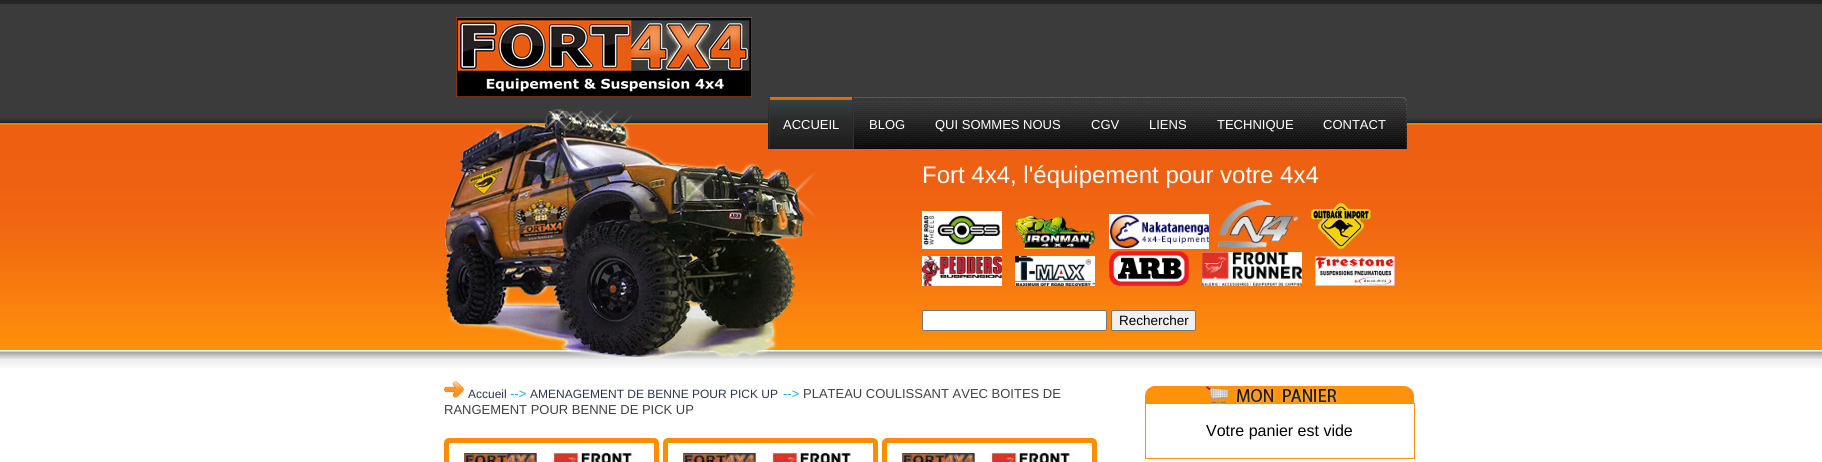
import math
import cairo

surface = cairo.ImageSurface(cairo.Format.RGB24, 1822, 462)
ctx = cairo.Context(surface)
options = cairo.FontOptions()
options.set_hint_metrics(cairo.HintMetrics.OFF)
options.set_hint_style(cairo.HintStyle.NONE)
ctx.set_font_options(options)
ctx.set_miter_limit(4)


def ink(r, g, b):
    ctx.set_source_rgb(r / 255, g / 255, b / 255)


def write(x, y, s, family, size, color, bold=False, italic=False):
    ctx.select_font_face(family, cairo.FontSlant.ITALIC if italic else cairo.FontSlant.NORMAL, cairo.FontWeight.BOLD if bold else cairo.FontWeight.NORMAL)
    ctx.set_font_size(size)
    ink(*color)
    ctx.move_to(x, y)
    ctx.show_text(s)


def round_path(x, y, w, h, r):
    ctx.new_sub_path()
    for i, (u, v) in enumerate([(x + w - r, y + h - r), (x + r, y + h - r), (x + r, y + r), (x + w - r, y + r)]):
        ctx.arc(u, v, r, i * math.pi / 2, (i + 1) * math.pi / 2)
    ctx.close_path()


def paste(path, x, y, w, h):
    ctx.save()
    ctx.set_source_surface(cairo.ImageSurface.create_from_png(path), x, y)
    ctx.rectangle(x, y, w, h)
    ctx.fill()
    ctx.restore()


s1 = dict(family="Liberation Sans", size=13, color=(255, 255, 255))
s2 = dict(family="Liberation Sans", size=24, color=(255, 255, 255))
s3 = dict(family="Liberation Sans", size=13.5, color=(0, 0, 0))
s4 = dict(family="Liberation Sans", size=12, color=(44, 54, 81))
s5 = dict(family="Liberation Sans", size=13, color=(28, 169, 255))
s6 = dict(family="Liberation Sans", size=13, color=(65, 65, 65))
s7 = dict(family="Liberation Sans", size=16, color=(0, 0, 0))

ink(255, 255, 255)
ctx.paint()
paste("pic1.png", 0, 0, 1822, 368)
paste("pic2.png", 456, 17, 296, 80)
paste("pic3.png", 441, 109, 376, 250)
paste("pic4.png", 854, 97, 553, 52)
paste("pic5.png", 768, 97, 5, 52)
paste("pic6.png", 773, 97, 81, 52)
write(783, 129, "ACCUEIL", **s1)
write(869, 129, "BLOG", **s1)
write(935, 129, "QUI SOMMES NOUS", **s1)
write(1091, 129, "CGV", **s1)
write(1149, 129, "LIENS", **s1)
write(1217, 129, "TECHNIQUE", **s1)
write(1323, 129, "CONTACT", **s1)
write(922, 183, "Fort 4x4, l'équipement pour votre 4x4", **s2)
paste("pic7.png", 922, 211, 80, 38)
paste("pic8.png", 1015, 215, 80, 34)
paste("pic9.png", 1109, 214, 100, 35)
paste("pic10.png", 1218, 200, 80, 49)
paste("pic11.png", 1311, 203, 60, 46)
paste("pic12.png", 922, 256, 80, 30)
paste("pic13.png", 1015, 256, 80, 30)
paste("pic14.png", 1109, 251, 80, 35)
paste("pic15.png", 1202, 252, 100, 34)
paste("pic16.png", 1315, 256, 80, 30)
round_path(922.5, 310.5, 184, 20, 1.5)
ctx.fill_preserve()
ink(118, 118, 118)
ctx.set_line_width(1)
ctx.stroke()
ink(239, 239, 239)
round_path(1111.5, 310.5, 84, 20, 1.5)
ctx.fill_preserve()
ink(118, 118, 118)
ctx.stroke()
write(1119, 325, "Rechercher", **s3)
paste("pic17.png", 444, 381, 20, 17)
write(468, 398, "Accueil", **s4)
write(510, 398, "-->", **s5)
write(530, 398, "AMENAGEMENT DE BENNE POUR PICK UP", **s4)
write(783, 398, "-->", **s5)
write(803, 398, "PLATEAU COULISSANT AVEC BOITES DE", **s6)
write(444, 414, "RANGEMENT POUR BENNE DE PICK UP", **s6)
round_path(446.5, 440.5, 210, 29, 2.5)
ink(250, 141, 0)
ctx.set_line_width(5)
ctx.stroke()
paste("pic18.png", 464, 453, 177, 9)
round_path(665.5, 440.5, 210, 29, 2.5)
ctx.stroke()
paste("pic18.png", 683, 453, 177, 9)
round_path(884.5, 440.5, 210, 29, 2.5)
ctx.stroke()
paste("pic18.png", 902, 453, 177, 9)
paste("pic19.png", 1145, 386, 269, 17)
ctx.rectangle(1145.5, 403.5, 269, 55)
ink(255, 145, 12)
ctx.set_line_width(1)
ctx.stroke()
write(1206, 436, "Votre panier est vide", **s7)
surface.write_to_png("screenshot.png")
